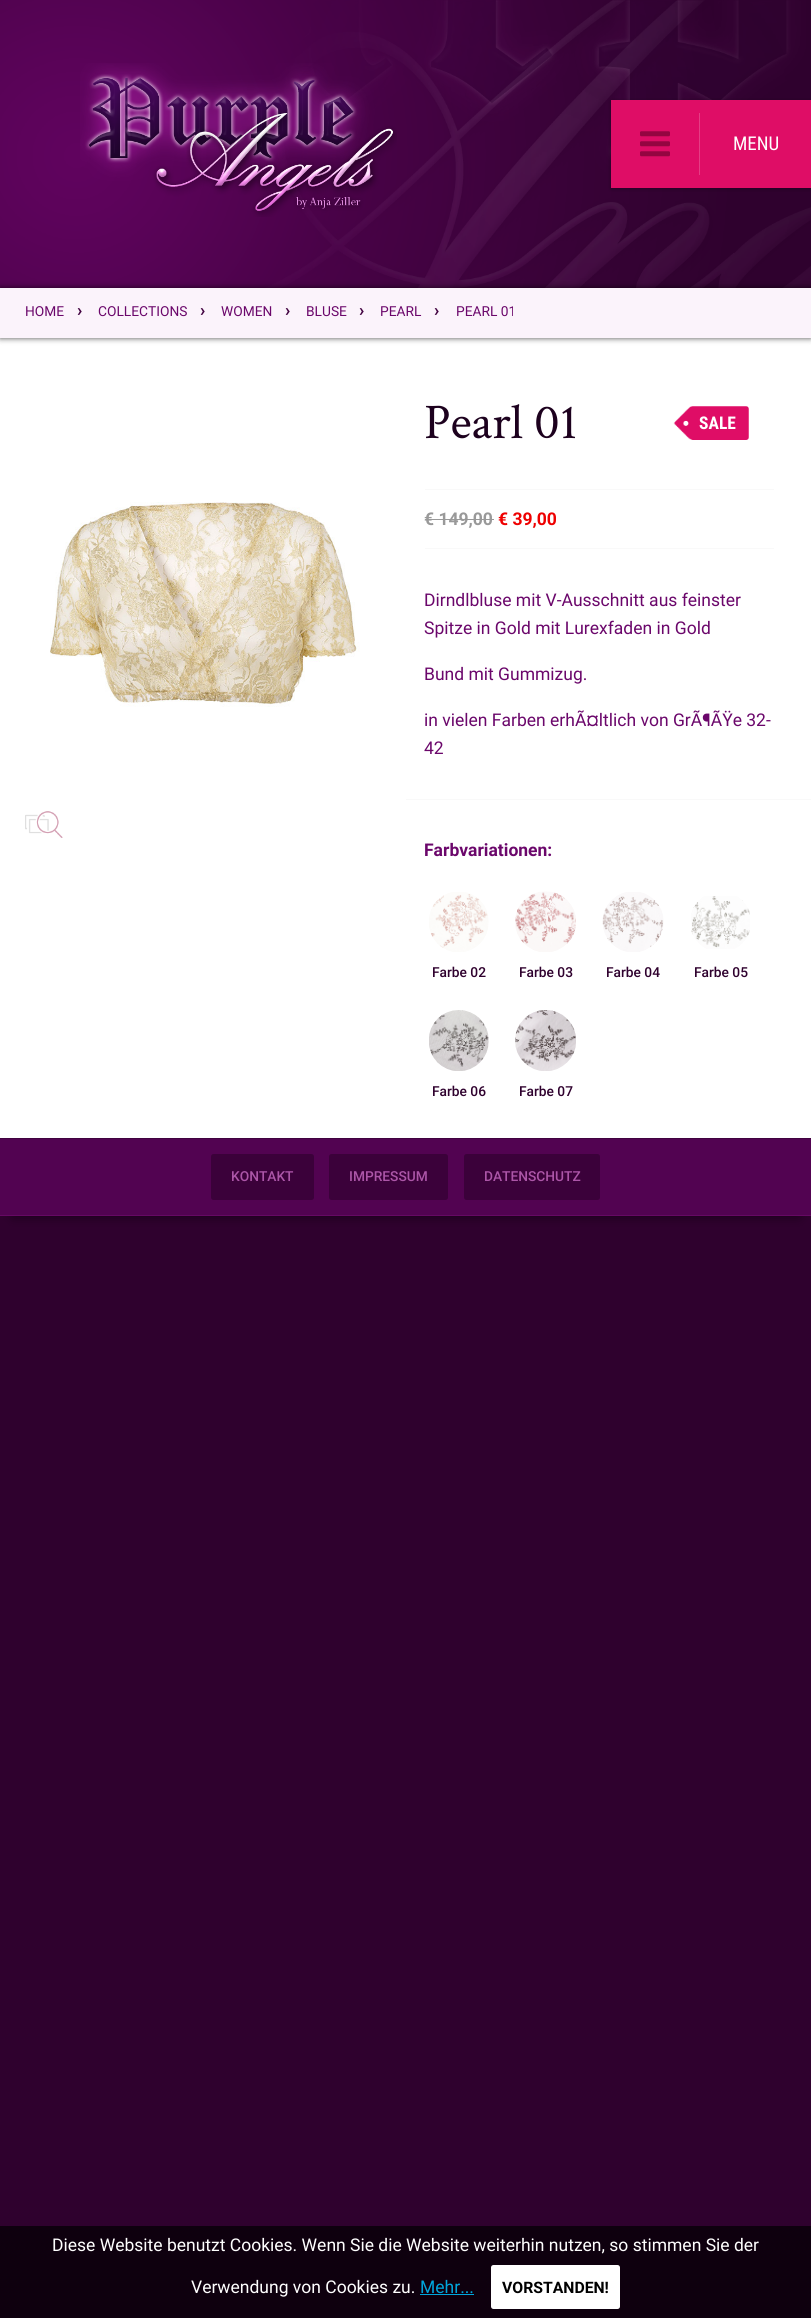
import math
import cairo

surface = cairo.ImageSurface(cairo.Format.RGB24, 811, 2318)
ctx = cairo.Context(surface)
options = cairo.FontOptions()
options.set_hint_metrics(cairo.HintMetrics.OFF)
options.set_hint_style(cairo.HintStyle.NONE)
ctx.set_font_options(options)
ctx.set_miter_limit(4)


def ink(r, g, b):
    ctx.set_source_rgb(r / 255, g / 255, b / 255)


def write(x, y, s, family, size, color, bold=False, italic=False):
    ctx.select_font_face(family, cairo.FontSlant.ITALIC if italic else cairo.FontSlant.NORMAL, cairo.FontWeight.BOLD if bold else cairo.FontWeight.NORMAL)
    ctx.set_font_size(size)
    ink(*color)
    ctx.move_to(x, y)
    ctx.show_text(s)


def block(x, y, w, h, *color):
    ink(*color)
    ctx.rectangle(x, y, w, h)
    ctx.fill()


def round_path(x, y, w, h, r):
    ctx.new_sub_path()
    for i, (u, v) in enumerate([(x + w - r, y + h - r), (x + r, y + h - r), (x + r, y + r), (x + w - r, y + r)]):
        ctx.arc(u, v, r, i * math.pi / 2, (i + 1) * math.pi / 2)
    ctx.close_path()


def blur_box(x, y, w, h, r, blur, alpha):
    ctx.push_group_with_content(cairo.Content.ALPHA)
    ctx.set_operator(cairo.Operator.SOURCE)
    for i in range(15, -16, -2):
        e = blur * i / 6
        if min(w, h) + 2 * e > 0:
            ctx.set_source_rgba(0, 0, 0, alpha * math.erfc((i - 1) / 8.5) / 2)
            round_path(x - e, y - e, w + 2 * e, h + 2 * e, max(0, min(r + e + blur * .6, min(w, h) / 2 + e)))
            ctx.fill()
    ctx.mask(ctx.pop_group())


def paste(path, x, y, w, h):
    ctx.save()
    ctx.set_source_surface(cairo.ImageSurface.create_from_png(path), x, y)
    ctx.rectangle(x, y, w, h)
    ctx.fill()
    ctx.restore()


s1 = dict(family="Roboto Condensed", size=19, color=(255, 255, 255))
s2 = dict(family="Roboto", size=13.75, color=(107, 7, 107))
s3 = dict(family="Roboto", size=17.5, color=(66, 3, 65), bold=True)
s4 = dict(family="Crimson Text", size=50, color=(29, 1, 30))
s5 = dict(family="Roboto Condensed", size=17.5, color=(255, 255, 255), bold=True)
s6 = dict(family="Roboto", size=17.5, color=(153, 153, 153), bold=True)
s7 = dict(family="Roboto", size=17.5, color=(238, 0, 0), bold=True)
s8 = dict(family="Roboto", size=17.5, color=(107, 7, 107))
s9 = dict(family="Roboto", size=17.5, color=(107, 7, 107), bold=True)
s10 = dict(family="Roboto Medium", size=13.75, color=(47, 1, 46))
s11 = dict(family="Roboto Medium", size=13.75, color=(172, 86, 168))
s12 = dict(family="Roboto", size=17.5, color=(255, 255, 255))
s13 = dict(family="Roboto", size=17.5, color=(0, 166, 220))
s14 = dict(family="Roboto", size=15.75, color=(0, 0, 0), bold=True)

ink(47, 1, 46)
ctx.paint()
block(0, 0, 811, 288, 96, 3, 94)
paste("pic1.png", 0, 0, 811, 288)
paste("pic2.png", 80, 63, 317, 154)
ink(0, 0, 0)
blur_box(611, 101, 200, 88, 0, 2, 0.3)
block(611, 100, 200, 88, 223, 13, 102)
paste("pic3.png", 640, 131, 30, 26)
block(699, 113, 1, 62, 229, 61, 133)
write(733, 150, "MENU", **s1)
block(0, 338, 811, 800, 255, 255, 255)
paste("pic4.png", 0, 338, 407, 369)
ink(0, 0, 0)
blur_box(0, 288, 811, 50, 0, 3, 0.7)
block(0, 288, 811, 50, 251, 243, 251)
write(25, 316, "HOME", **s2)
write(77, 316, "›", **s3)
write(98, 316, "COLLECTIONS", **s2)
write(200, 316, "›", **s3)
write(221, 316, "WOMEN", **s2)
write(285, 316, "›", **s3)
write(306, 316, "BLUSE", **s2)
write(359, 316, "›", **s3)
write(380, 316, "PEARL", **s2)
write(434, 316, "›", **s3)
write(456, 316, "PEARL 01", **s2)
paste("pic5.png", 25, 811, 38, 27)
write(424, 438, "Pearl 01", **s4)
paste("pic6.png", 673, 406, 76, 34)
write(699, 429, "SALE", **s5)
block(425, 489, 349, 1, 249, 249, 249)
block(425, 548, 349, 1, 249, 249, 249)
write(424, 525, "€ 149,00", **s6)
block(425, 519, 69, 1, 153, 153, 153)
write(498, 525, "€ 39,00", **s7)
write(424, 606, "Dirndlbluse mit V-Ausschnitt aus feinster", **s8)
write(424, 634, "Spitze in Gold mit Lurexfaden in Gold", **s8)
write(424, 680, "Bund mit Gummizug.", **s8)
write(424, 726, "in vielen Farben erhÃ¤ltlich von GrÃ¶ÃŸe 32-", **s8)
write(424, 754, "42", **s8)
block(406, 799, 405, 1, 249, 249, 249)
write(424, 856, "Farbvariationen:", **s9)
paste("pic7.png", 429, 892, 60, 60)
write(432, 977, "Farbe 02", **s10)
paste("pic8.png", 515, 891, 61, 61)
write(519, 977, "Farbe 03", **s10)
paste("pic9.png", 602, 892, 62, 60)
write(606, 977, "Farbe 04", **s10)
paste("pic10.png", 691, 896, 59, 53)
write(694, 977, "Farbe 05", **s10)
paste("pic11.png", 429, 1010, 60, 61)
write(432, 1096, "Farbe 06", **s10)
paste("pic12.png", 515, 1010, 61, 61)
write(519, 1096, "Farbe 07", **s10)
ink(0, 0, 0)
blur_box(13, 1163, 786, 53, 0, 6, 0.5)
block(0, 1138, 811, 1, 64, 3, 63)
block(0, 1215, 811, 1, 102, 9, 100)
block(0, 1139, 811, 76, 82, 3, 81)
ink(59, 1, 58)
round_path(211, 1154, 103, 46, 2.5)
ctx.fill()
write(231, 1181, "KONTAKT", **s11)
ink(59, 1, 58)
round_path(329, 1154, 119, 46, 2.5)
ctx.fill()
write(349, 1181, "IMPRESSUM", **s11)
ink(59, 1, 58)
round_path(464, 1154, 136, 46, 2.5)
ctx.fill()
write(484, 1181, "DATENSCHUTZ", **s11)
block(0, 2226, 811, 92, 14, 0, 14)
write(52, 2251, "Diese Website benutzt Cookies. Wenn Sie die Website weiterhin nutzen, so stimmen Sie der", **s12)
write(191, 2293, "Verwendung von Cookies zu.", **s12)
write(420, 2293, "Mehr...", **s13)
block(420, 2294, 54, 1, 0, 166, 220)
ink(255, 255, 255)
round_path(491, 2265, 129, 44, 2.5)
ctx.fill()
write(502, 2293, "VORSTANDEN!", **s14)
surface.write_to_png("screenshot.png")
